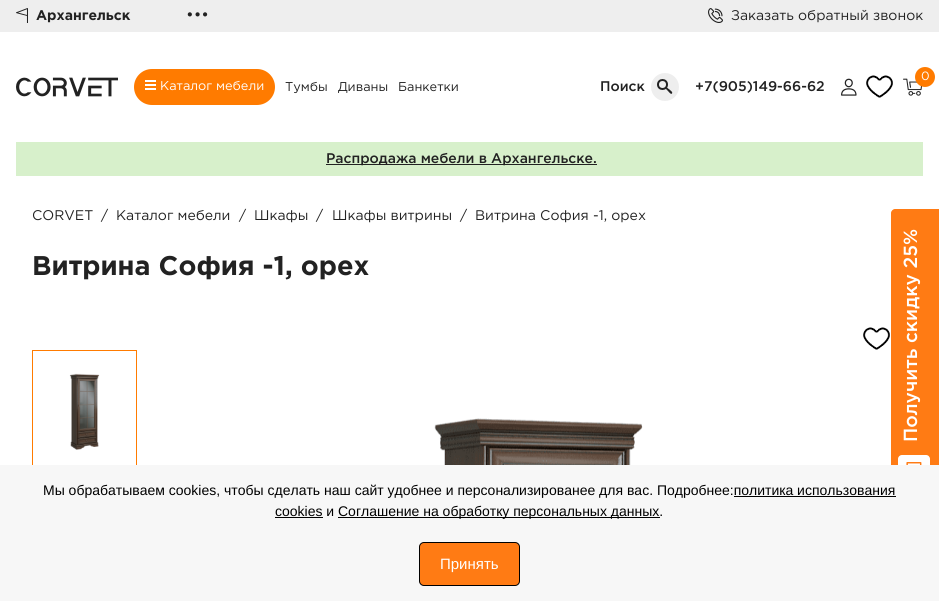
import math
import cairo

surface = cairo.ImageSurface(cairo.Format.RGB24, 939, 601)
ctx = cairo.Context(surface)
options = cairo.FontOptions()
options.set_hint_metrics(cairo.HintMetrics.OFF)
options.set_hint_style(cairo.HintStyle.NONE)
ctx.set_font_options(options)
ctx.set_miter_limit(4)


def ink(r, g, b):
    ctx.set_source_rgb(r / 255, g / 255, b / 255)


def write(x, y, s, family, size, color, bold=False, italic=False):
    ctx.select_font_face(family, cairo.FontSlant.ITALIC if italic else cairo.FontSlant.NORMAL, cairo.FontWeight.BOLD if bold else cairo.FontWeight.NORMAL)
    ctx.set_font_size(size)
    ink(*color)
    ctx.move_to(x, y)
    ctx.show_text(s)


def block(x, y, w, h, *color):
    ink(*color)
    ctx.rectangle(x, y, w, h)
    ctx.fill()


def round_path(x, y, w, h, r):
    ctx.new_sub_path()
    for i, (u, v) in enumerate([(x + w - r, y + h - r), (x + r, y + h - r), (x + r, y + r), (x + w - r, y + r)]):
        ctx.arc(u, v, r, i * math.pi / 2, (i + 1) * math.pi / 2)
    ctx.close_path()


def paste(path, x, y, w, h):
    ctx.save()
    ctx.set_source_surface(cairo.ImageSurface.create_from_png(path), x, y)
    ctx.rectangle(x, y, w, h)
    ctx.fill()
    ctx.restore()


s1 = dict(family="Gotham", size=14, color=(34, 34, 34), bold=True)
s2 = dict(family="Gotham", size=16, color=(34, 34, 34))
s3 = dict(family="Gotham", size=14, color=(34, 34, 34))
s4 = dict(family="Gotham", size=12, color=(255, 255, 255))
s5 = dict(family="Gotham", size=12.75, color=(255, 255, 255))
s6 = dict(family="Gotham", size=12.75, color=(34, 34, 34))
s7 = dict(family="Gotham Medium", size=14, color=(34, 34, 34))
s8 = dict(family="Gotham", size=27, color=(34, 34, 34), bold=True)
s9 = dict(family="Liberation Sans", size=14, color=(0, 0, 0))
s10 = dict(family="Liberation Sans", size=15, color=(255, 255, 255))
s11 = dict(family="Gotham Medium", size=19, color=(255, 255, 255))

ink(255, 255, 255)
ctx.paint()
block(0, 0, 939, 32, 238, 238, 238)
paste("pic1.png", 16, 8, 12, 15)
write(36, 20, "Архангельск", **s1)
write(186, 20, "•••", **s2)
paste("pic2.png", 708, 8, 15, 15)
write(731, 20, "Заказать обратный звонок", **s3)
paste("pic3.png", 841, 78, 16, 18)
paste("pic4.png", 866, 75, 27, 23)
paste("pic5.png", 903, 78, 19, 18)
ink(255, 123, 0)
ctx.arc(925, 77, 10, 0, 2 * math.pi)
ctx.fill()
write(921, 80, "0", **s4)
paste("pic6.png", 16, 77, 102, 20)
ink(255, 123, 0)
round_path(134, 69, 141, 36, 18)
ctx.fill()
block(145, 80, 11, 2, 255, 255, 255)
block(145, 84, 11, 2, 255, 255, 255)
block(145, 88, 11, 2, 255, 255, 255)
write(160, 90, "Каталог мебели", **s5)
write(285, 91, "Тумбы", **s6)
write(338, 91, "Диваны", **s6)
write(398, 91, "Банкетки", **s6)
write(600, 91, "Поиск", **s7)
ink(238, 238, 238)
ctx.new_path()
ctx.arc(665, 87, 14, 0, 2 * math.pi)
ctx.fill()
ctx.arc(662.5, 84.5, 4.5, 0, 2 * math.pi)
ink(34, 34, 34)
ctx.stroke()
ctx.new_path()
ctx.move_to(667.5, 88)
ctx.line_to(670, 90)
ctx.curve_to(670.5, 90.5, 673, 92, 672, 93.5)
ctx.curve_to(671, 95, 668.5, 91.5, 667.5, 90.5)
ctx.line_to(666, 89)
ctx.curve_to(665.5, 88, 667, 87, 667.5, 88)
ctx.close_path()
ctx.fill()
write(695, 91, "+7(905)149-66-62", **s7)
block(16, 142, 907, 34, 215, 240, 203)
block(326, 164, 271, 1, 34, 34, 34)
write(326, 163, "Распродажа мебели в Архангельске.", **s7)
write(32, 220, "CORVET", **s3)
write(101, 220, "/", **s3)
write(116, 220, "Каталог мебели", **s3)
write(239, 220, "/", **s3)
write(254, 220, "Шкафы", **s3)
write(316, 220, "/", **s3)
write(332, 220, "Шкафы витрины", **s3)
write(460, 220, "/", **s3)
write(475, 220, "Витрина София -1, орех", **s3)
write(32, 275, "Витрина София -1, орех", **s8)
paste("pic4.png", 863, 327, 27, 23)
ctx.rectangle(32.5, 350.5, 104, 125)
ink(255, 123, 0)
ctx.set_line_width(1)
ctx.stroke()
paste("pic7.png", 69, 373, 31, 77)
paste("pic8.png", 434, 418, 209, 47)
ink(255, 123, 20)
ctx.new_path()
ctx.move_to(891, 489)
ctx.line_to(891, 213)
ctx.curve_to(891, 211, 893, 209, 895, 209)
ctx.line_to(939, 209)
ctx.line_to(939, 493)
ctx.line_to(895, 493)
ctx.curve_to(893, 493, 891, 492, 891, 489)
ctx.close_path()
ctx.fill()
ink(255, 255, 255)
round_path(898, 455, 32, 32, 4)
ctx.fill()
block(0, 465, 939, 136, 247, 247, 247)
write(43, 495, "Мы обрабатываем cookies, чтобы сделать наш сайт удобнее и персонализированее для вас. Подробнее:политика использования", **s9)
write(275, 516, "cookies и", **s9)
block(734, 496, 162, 1, 0, 0, 0)
block(275, 517, 48, 1, 0, 0, 0)
block(338, 517, 322, 1, 0, 0, 0)
write(338, 516, "Соглашение на обработку персональных данных.", **s9)
ink(255, 123, 20)
round_path(419.5, 542.5, 100, 43, 4.5)
ctx.fill_preserve()
ink(0, 0, 0)
ctx.stroke()
write(440, 569, "Принять", **s10)
ctx.save()
ctx.translate(917, 442)
ctx.rotate(-90 * math.pi / 180)
write(0, 0, "Получить скидку 25%", **s11)
ctx.restore()
paste("pic9.png", 906, 462, 16, 3)
surface.write_to_png("screenshot.png")
